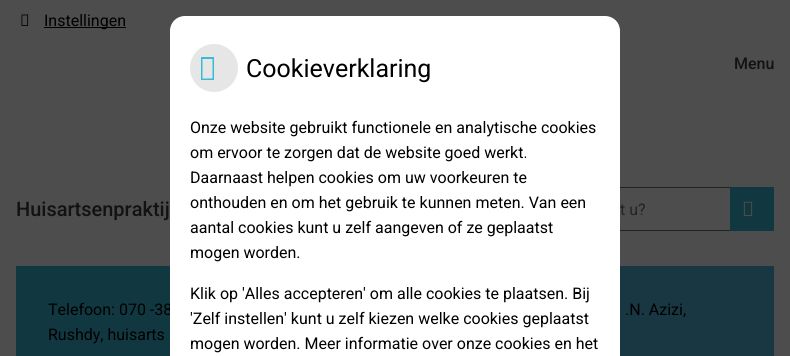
import math
import cairo

surface = cairo.ImageSurface(cairo.Format.RGB24, 790, 356)
ctx = cairo.Context(surface)
options = cairo.FontOptions()
options.set_hint_metrics(cairo.HintMetrics.OFF)
options.set_hint_style(cairo.HintStyle.NONE)
ctx.set_font_options(options)
ctx.set_miter_limit(4)


def ink(r, g, b):
    ctx.set_source_rgb(r / 255, g / 255, b / 255)


def write(x, y, s, family, size, color, bold=False, italic=False):
    ctx.select_font_face(family, cairo.FontSlant.ITALIC if italic else cairo.FontSlant.NORMAL, cairo.FontWeight.BOLD if bold else cairo.FontWeight.NORMAL)
    ctx.set_font_size(size)
    ink(*color)
    ctx.move_to(x, y)
    ctx.show_text(s)


def block(x, y, w, h, *color):
    ink(*color)
    ctx.rectangle(x, y, w, h)
    ctx.fill()


def paste(path, x, y, w, h):
    ctx.save()
    ctx.set_source_surface(cairo.ImageSurface.create_from_png(path), x, y)
    ctx.rectangle(x, y, w, h)
    ctx.fill()
    ctx.restore()


s1 = dict(family="Roboto", size=16, color=(0, 0, 0))
s2 = dict(family="Roboto Medium", size=16, color=(18, 18, 18))
s3 = dict(family="Roboto", size=16, color=(35, 35, 35))
s4 = dict(family="Roboto", size=25, color=(0, 0, 0))
s5 = dict(family="Roboto Medium", size=20, color=(18, 18, 18))

ink(77, 77, 77)
ctx.paint()
paste("pic1.png", 21, 14, 8, 12)
block(44, 27, 82, 1, 0, 0, 0)
write(44, 26, "Instellingen", **s1)
write(734, 69, "Menu", **s2)
block(16, 266, 154, 90, 17, 56, 64)
write(48, 315, "Telefoon: 070 -38", **s1)
write(48, 340, "Rushdy, huisarts", **s1)
block(620, 266, 154, 90, 24, 55, 66)
write(625, 315, ".N. Azizi,", **s1)
write(620, 215, "t u?", **s3)
ink(255, 255, 255)
ctx.new_path()
ctx.move_to(185, 16)
ctx.line_to(605, 16)
ctx.curve_to(613.5, 16, 620, 22.5, 620, 31)
ctx.line_to(620, 356)
ctx.line_to(170, 356)
ctx.line_to(170, 31)
ctx.curve_to(170, 22.5, 176.5, 16, 185, 16)
ctx.close_path()
ctx.fill()
ink(230, 230, 230)
ctx.arc(214, 68, 24, 0, 2 * math.pi)
ctx.fill()
ink(55, 187, 214)
ctx.new_path()
ctx.move_to(201, 80)
ctx.line_to(201, 57)
ctx.line_to(214, 57)
ctx.line_to(214, 80)
ctx.close_path()
ctx.move_to(202.5, 78.5)
ctx.line_to(212.5, 78.5)
ctx.line_to(212.5, 59)
ctx.line_to(202.5, 59)
ctx.close_path()
ctx.fill()
write(246, 77, "Cookieverklaring", **s4)
write(190, 133, "Onze website gebruikt functionele en analytische cookies", **s1)
write(190, 158, "om ervoor te zorgen dat de website goed werkt.", **s1)
write(190, 183, "Daarnaast helpen cookies om uw voorkeuren te", **s1)
write(190, 208, "onthouden en om het gebruik te kunnen meten. Van een", **s1)
write(190, 233, "aantal cookies kunt u zelf aangeven of ze geplaatst", **s1)
write(190, 258, "mogen worden.", **s1)
write(190, 299, "Klik op 'Alles accepteren' om alle cookies te plaatsen. Bij", **s1)
write(190, 324, "'Zelf instellen' kunt u zelf kiezen welke cookies geplaatst", **s1)
write(190, 349, "mogen worden. Meer informatie over onze cookies en het", **s1)
write(16, 216, "Huisartsenpraktij", **s5)
block(620, 187, 110, 1, 34, 34, 34)
block(620, 230, 110, 1, 34, 34, 34)
block(730, 187, 44, 44, 17, 56, 64)
paste("pic2.png", 743, 201, 10, 15)
surface.write_to_png("screenshot.png")
